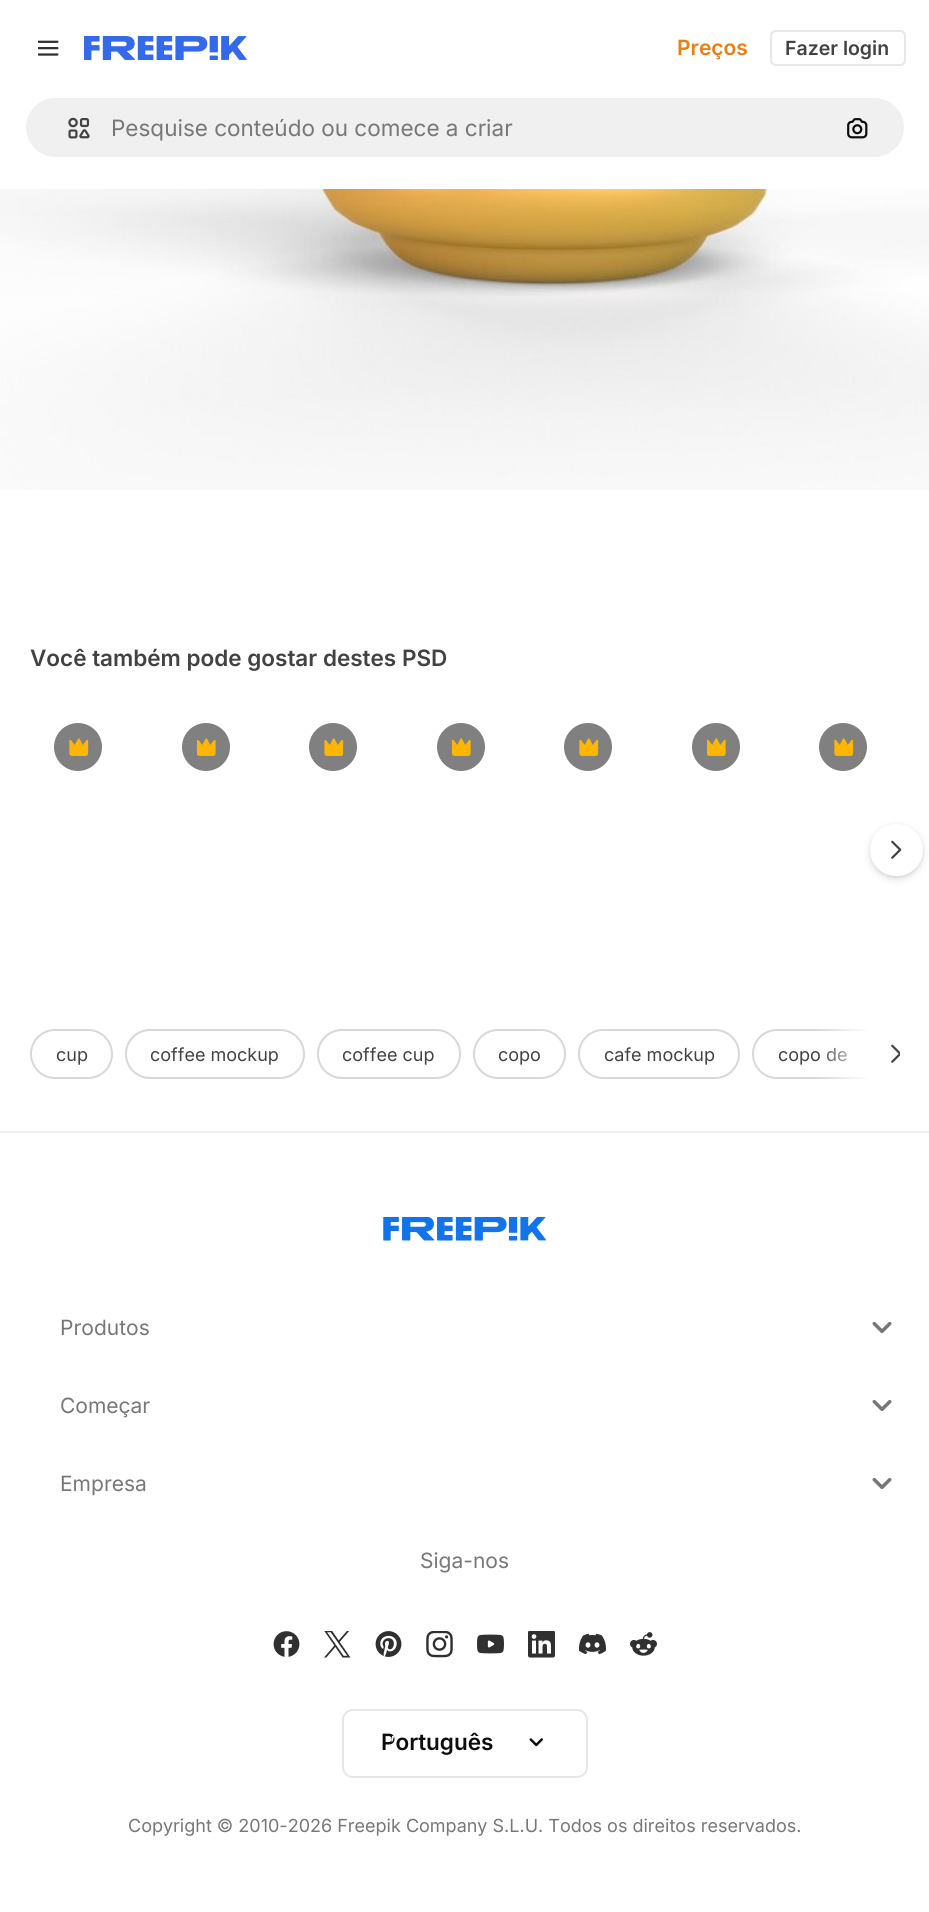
import math
import cairo

surface = cairo.ImageSurface(cairo.Format.RGB24, 929, 1912)
ctx = cairo.Context(surface)
options = cairo.FontOptions()
options.set_hint_metrics(cairo.HintMetrics.OFF)
options.set_hint_style(cairo.HintStyle.NONE)
ctx.set_font_options(options)
ctx.set_miter_limit(4)


def ink(r, g, b):
    ctx.set_source_rgb(r / 255, g / 255, b / 255)


def write(x, y, s, family, size, color, bold=False, italic=False):
    ctx.select_font_face(family, cairo.FontSlant.ITALIC if italic else cairo.FontSlant.NORMAL, cairo.FontWeight.BOLD if bold else cairo.FontWeight.NORMAL)
    ctx.set_font_size(size)
    ink(*color)
    ctx.move_to(x, y)
    ctx.show_text(s)


def block(x, y, w, h, *color):
    ink(*color)
    ctx.rectangle(x, y, w, h)
    ctx.fill()


def round_path(x, y, w, h, r):
    ctx.new_sub_path()
    for i, (u, v) in enumerate([(x + w - r, y + h - r), (x + r, y + h - r), (x + r, y + r), (x + w - r, y + r)]):
        ctx.arc(u, v, r, i * math.pi / 2, (i + 1) * math.pi / 2)
    ctx.close_path()


def blur_box(x, y, w, h, r, blur, alpha):
    ctx.push_group_with_content(cairo.Content.ALPHA)
    ctx.set_operator(cairo.Operator.SOURCE)
    for i in range(15, -16, -2):
        e = blur * i / 6
        if min(w, h) + 2 * e > 0:
            ctx.set_source_rgba(0, 0, 0, alpha * math.erfc((i - 1) / 8.5) / 2)
            round_path(x - e, y - e, w + 2 * e, h + 2 * e, max(0, min(r + e + blur * .6, min(w, h) / 2 + e)))
            ctx.fill()
    ctx.mask(ctx.pop_group())


def paste(path, x, y, w, h):
    ctx.save()
    ctx.set_source_surface(cairo.ImageSurface.create_from_png(path), x, y)
    ctx.rectangle(x, y, w, h)
    ctx.fill()
    ctx.restore()


s1 = dict(family="Inter SemiBold", size=21, color=(234, 126, 17))
s2 = dict(family="Inter SemiBold", size=19.5, color=(66, 66, 66))
s3 = dict(family="Inter", size=22.5, color=(119, 119, 119))
s4 = dict(family="Inter SemiBold", size=22.5, color=(66, 66, 66))
s5 = dict(family="Inter", size=18, color=(66, 66, 66))
s6 = dict(family="Inter", size=21, color=(119, 119, 119))
s7 = dict(family="Inter SemiBold", size=22.5, color=(13, 13, 13))
s8 = dict(family="Inter", size=18, color=(119, 119, 119))
s9 = dict(family="Inter", size=20, color=(253, 253, 253))

ink(255, 255, 255)
ctx.paint()
paste("pic1.png", 38, 40, 21, 16)
paste("pic2.png", 84, 36, 163, 24)
write(677, 55, "Preços", **s1)
round_path(771, 31, 134, 34, 5)
ink(231, 231, 231)
ctx.stroke()
write(785, 55, "Fazer login", **s2)
ink(240, 240, 240)
round_path(25, 97, 880, 61, 30.5)
ctx.fill_preserve()
ink(255, 255, 255)
ctx.stroke()
paste("pic3.png", 68, 117, 22, 22)
write(111, 136, "Pesquise conteúdo ou comece a criar", **s3)
paste("pic4.png", 847, 118, 21, 21)
paste("pic5.png", 0, 189, 929, 301)
write(30, 666, "Você também pode gostar destes PSD", **s4)
ink(128, 128, 128)
ctx.new_path()
ctx.arc(78, 747, 24, 0, 2 * math.pi)
ctx.fill()
paste("pic6.png", 69, 738, 20, 18)
ctx.arc(206, 747, 24, 0, 2 * math.pi)
ctx.fill()
paste("pic7.png", 197, 738, 19, 18)
ctx.arc(333, 747, 24, 0, 2 * math.pi)
ctx.fill()
paste("pic6.png", 324, 738, 20, 18)
ctx.arc(461, 747, 24, 0, 2 * math.pi)
ctx.fill()
paste("pic7.png", 452, 738, 19, 18)
ctx.arc(588, 747, 24, 0, 2 * math.pi)
ctx.fill()
paste("pic6.png", 579, 738, 20, 18)
ctx.arc(716, 747, 24, 0, 2 * math.pi)
ctx.fill()
paste("pic7.png", 707, 738, 19, 18)
ctx.arc(843, 747, 24, 0, 2 * math.pi)
ctx.fill()
paste("pic6.png", 834, 738, 20, 18)
ink(55, 73, 87)
blur_box(870, 827, 53, 52, 26, 4, 0.15)
blur_box(870, 825, 53, 53, 26.5, 1.5, 0.1)
ink(255, 255, 255)
round_path(870, 824, 53, 52, 26)
ctx.fill()
paste("pic8.png", 891, 840, 11, 19)
round_path(31, 1030, 81, 48, 24)
ink(216, 216, 216)
ctx.stroke()
write(56, 1061, "cup", **s5)
round_path(126, 1030, 178, 48, 24)
ink(216, 216, 216)
ctx.stroke()
write(150, 1061, "coffee mockup", **s5)
round_path(318, 1030, 142, 48, 24)
ink(216, 216, 216)
ctx.stroke()
write(342, 1061, "coffee cup", **s5)
round_path(474, 1030, 91, 48, 24)
ink(216, 216, 216)
ctx.stroke()
write(498, 1061, "copo", **s5)
round_path(579, 1030, 160, 48, 24)
ink(216, 216, 216)
ctx.stroke()
write(604, 1061, "cafe mockup", **s5)
ctx.save()
ctx.rectangle(30, 1029, 870, 50)
ctx.clip()
round_path(753, 1030, 170, 48, 24)
ink(216, 216, 216)
ctx.stroke()
ctx.restore()
write(778, 1061, "copo de", **s5)
block(870, 1029, 30, 50, 255, 255, 255)
gradient = cairo.LinearGradient(870, 1054, 818, 1054)
gradient.add_color_stop_rgba(0, 1, 1, 1, 1)
gradient.add_color_stop_rgba(1, 1, 1, 1, 0)
ctx.set_source(gradient)
ctx.rectangle(819, 1029, 51, 50)
ctx.fill()
paste("pic9.png", 891, 1044, 9, 19)
block(0, 1131, 929, 2, 240, 240, 240)
paste("pic10.png", 383, 1217, 163, 24)
write(60, 1335, "Produtos", **s6)
paste("pic11.png", 872, 1321, 20, 13)
write(60, 1413, "Começar", **s6)
paste("pic11.png", 872, 1399, 20, 13)
write(60, 1491, "Empresa", **s6)
paste("pic11.png", 872, 1477, 20, 13)
write(420, 1568, "Siga-nos", **s6)
paste("pic12.png", 273, 1631, 27, 26)
paste("pic13.png", 324, 1631, 27, 27)
paste("pic14.png", 375, 1631, 27, 26)
paste("pic15.png", 426, 1631, 27, 27)
paste("pic16.png", 477, 1634, 27, 20)
paste("pic17.png", 528, 1631, 27, 27)
paste("pic18.png", 579, 1633, 27, 22)
paste("pic19.png", 630, 1632, 27, 24)
round_path(343, 1710, 244, 67, 10)
ink(230, 230, 230)
ctx.stroke()
write(381, 1750, "Português", **s7)
paste("pic20.png", 529, 1738, 14, 9)
write(128, 1832, "Copyright © 2010-2026 Freepik Company S.L.U. Todos os direitos reservados.", **s8)
write(390, 1738, ",", **s9)
surface.write_to_png("screenshot.png")
